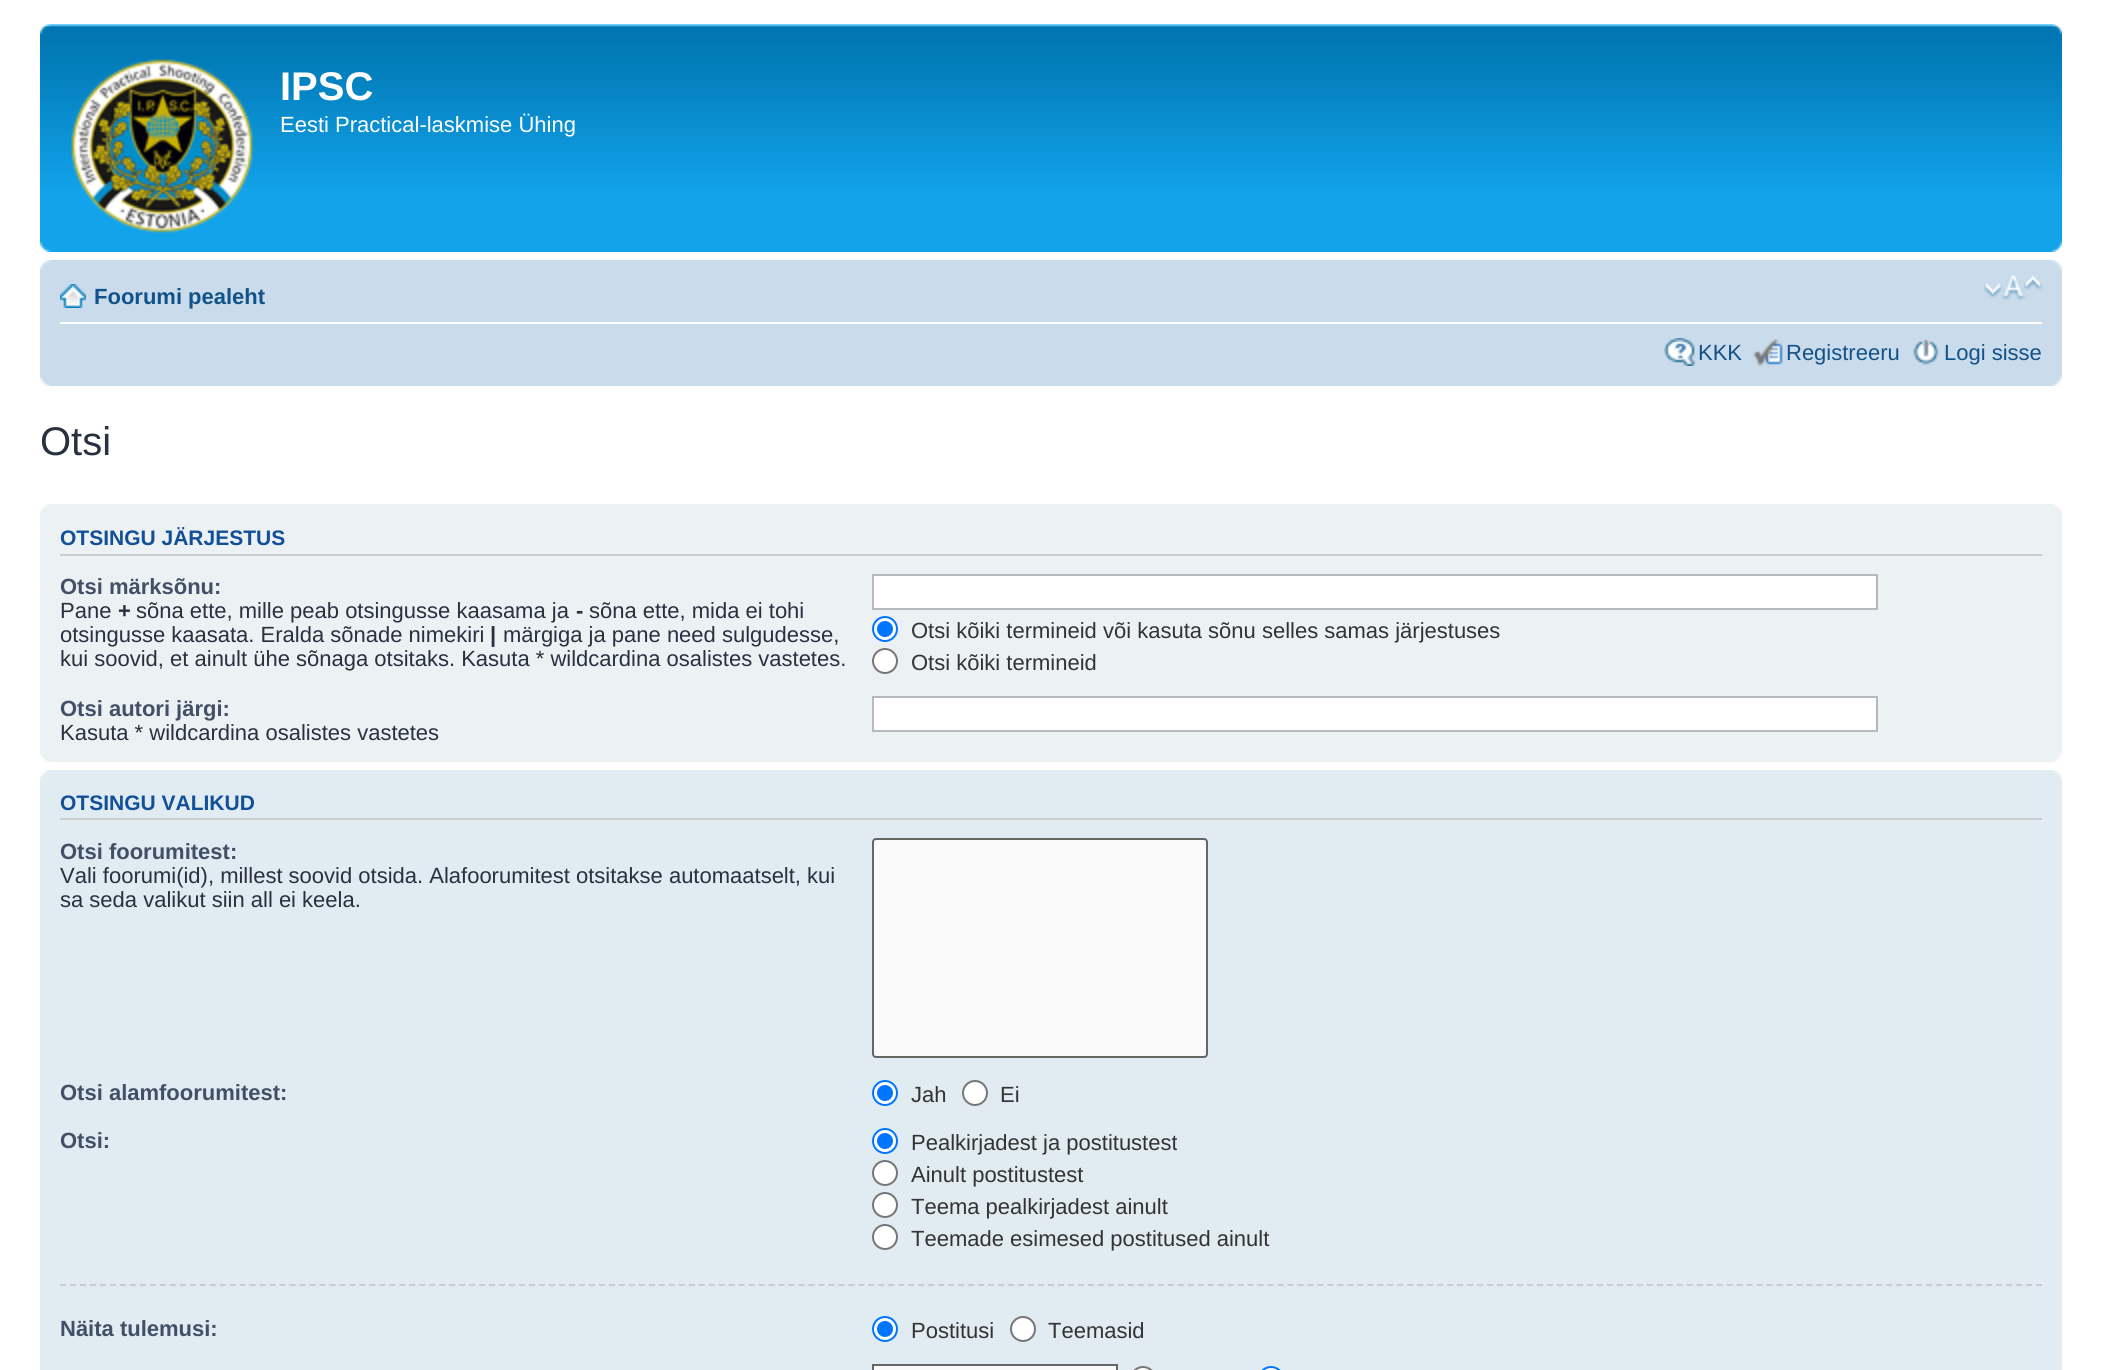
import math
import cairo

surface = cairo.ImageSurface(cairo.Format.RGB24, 2102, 1370)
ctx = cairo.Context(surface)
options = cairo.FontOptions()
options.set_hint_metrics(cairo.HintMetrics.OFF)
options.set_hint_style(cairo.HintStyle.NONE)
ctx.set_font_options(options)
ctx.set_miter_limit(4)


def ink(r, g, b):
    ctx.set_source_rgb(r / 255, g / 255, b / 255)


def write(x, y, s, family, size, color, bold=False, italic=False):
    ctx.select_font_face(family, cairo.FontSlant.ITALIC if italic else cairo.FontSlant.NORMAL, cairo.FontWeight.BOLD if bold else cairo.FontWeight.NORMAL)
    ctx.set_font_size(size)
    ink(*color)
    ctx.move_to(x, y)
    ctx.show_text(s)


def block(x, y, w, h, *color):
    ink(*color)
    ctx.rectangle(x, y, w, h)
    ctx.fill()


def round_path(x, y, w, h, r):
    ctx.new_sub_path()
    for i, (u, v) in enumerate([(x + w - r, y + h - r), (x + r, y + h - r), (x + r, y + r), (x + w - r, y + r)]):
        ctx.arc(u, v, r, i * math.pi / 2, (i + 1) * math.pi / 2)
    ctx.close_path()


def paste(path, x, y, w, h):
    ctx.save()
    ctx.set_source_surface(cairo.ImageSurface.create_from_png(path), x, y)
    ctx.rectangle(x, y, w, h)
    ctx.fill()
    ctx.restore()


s1 = dict(family="Liberation Sans", size=40, color=(255, 255, 255), bold=True)
s2 = dict(family="Liberation Sans", size=22, color=(255, 255, 255))
s3 = dict(family="Liberation Sans", size=22, color=(16, 82, 137), bold=True)
s4 = dict(family="Liberation Sans", size=22, color=(16, 82, 137))
s5 = dict(family="Liberation Sans", size=40, color=(40, 49, 63))
s6 = dict(family="Liberation Sans", size=21, color=(17, 80, 152), bold=True)
s7 = dict(family="Liberation Sans", size=22, color=(66, 80, 103), bold=True)
s8 = dict(family="Liberation Sans", size=22, color=(40, 49, 63))
s9 = dict(family="Liberation Sans", size=22, color=(40, 49, 63), bold=True)
s10 = dict(family="Liberation Sans", size=22, color=(51, 51, 51))

ink(255, 255, 255)
ctx.paint()
block(40, 188, 2022, 64, 18, 163, 235)
paste("pic1.png", 40, 24, 2022, 164)
paste("pic2.png", 40, 24, 11, 10)
paste("pic3.png", 2051, 24, 11, 10)
paste("pic4.png", 71, 59, 182, 174)
write(280, 100, "IPSC", **s1)
write(280, 132, "Eesti Practical-laskmise Ühing", **s2)
paste("pic5.png", 40, 242, 11, 10)
paste("pic6.png", 2051, 242, 11, 10)
block(40, 260, 2022, 126, 202, 220, 235)
paste("pic7.png", 40, 260, 11, 10)
paste("pic8.png", 2051, 260, 11, 10)
block(60, 322, 1982, 2, 255, 255, 255)
paste("pic9.png", 60, 284, 26, 24)
write(94, 304, "Foorumi pealeht", **s3)
paste("pic10.png", 1984, 275, 58, 26)
paste("pic11.png", 1664, 338, 32, 28)
write(1698, 360, "KKK", **s4)
paste("pic12.png", 1753, 339, 30, 27)
write(1786, 360, "Registreeru", **s4)
paste("pic13.png", 1913, 339, 26, 26)
write(1944, 360, "Logi sisse", **s4)
paste("pic14.png", 40, 376, 10, 10)
paste("pic15.png", 2052, 376, 10, 10)
write(40, 455, "Otsi", **s5)
block(40, 504, 2022, 258, 236, 241, 243)
paste("pic16.png", 40, 504, 9, 10)
paste("pic17.png", 2053, 504, 9, 10)
block(60, 554, 1982, 2, 204, 204, 204)
write(60, 545, "OTSINGU JÄRJESTUS", **s6)
write(60, 594, "Otsi märksõnu:", **s7)
write(60, 618, "Pane", **s8)
write(118, 618, "+", **s9)
write(136, 618, "sõna ette, mille peab otsingusse kaasama ja", **s8)
write(576, 618, "-", **s9)
write(589, 618, "sõna ette, mida ei tohi", **s8)
write(60, 642, "otsingusse kaasata. Eralda sõnade nimekiri", **s8)
write(490, 642, "|", **s9)
write(503, 642, "märgiga ja pane need sulgudesse,", **s8)
write(60, 666, "kui soovid, et ainult ühe sõnaga otsitaks. Kasuta * wildcardina osalistes vastetes.", **s8)
ink(255, 255, 255)
ctx.rectangle(873, 575, 1004, 34)
ctx.fill_preserve()
ink(180, 186, 192)
ctx.stroke()
ink(255, 255, 255)
ctx.arc(885, 629, 12, 0, 2 * math.pi)
ctx.fill_preserve()
ink(0, 117, 255)
ctx.stroke()
ctx.arc(885, 629, 8, 0, 2 * math.pi)
ctx.fill()
write(911, 638, "Otsi kõiki termineid või kasuta sõnu selles samas järjestuses", **s10)
ink(255, 255, 255)
ctx.new_path()
ctx.arc(885, 661, 12, 0, 2 * math.pi)
ctx.fill_preserve()
ink(118, 118, 118)
ctx.stroke()
write(911, 670, "Otsi kõiki termineid", **s10)
write(60, 716, "Otsi autori järgi:", **s7)
write(60, 740, "Kasuta * wildcardina osalistes vastetes", **s8)
ink(255, 255, 255)
ctx.rectangle(873, 697, 1004, 34)
ctx.fill_preserve()
ink(180, 186, 192)
ctx.stroke()
paste("pic18.png", 40, 752, 9, 10)
paste("pic19.png", 2053, 752, 9, 10)
block(40, 770, 2022, 600, 225, 235, 242)
paste("pic20.png", 40, 770, 10, 10)
paste("pic21.png", 2052, 770, 10, 10)
block(60, 818, 1982, 2, 204, 204, 204)
write(60, 810, "OTSINGU VALIKUD", **s6)
write(60, 859, "Otsi foorumitest:", **s7)
write(60, 883, "Vali foorumi(id), millest soovid otsida. Alafoorumitest otsitakse automaatselt, kui", **s8)
write(60, 907, "sa seda valikut siin all ei keela.", **s8)
ink(250, 250, 250)
round_path(873, 839, 334, 218, 3)
ctx.fill_preserve()
ink(102, 102, 102)
ctx.stroke()
write(60, 1100, "Otsi alamfoorumitest:", **s7)
ink(255, 255, 255)
ctx.new_path()
ctx.arc(885, 1093, 12, 0, 2 * math.pi)
ctx.fill_preserve()
ink(0, 117, 255)
ctx.stroke()
ctx.arc(885, 1093, 8, 0, 2 * math.pi)
ctx.fill()
write(911, 1102, "Jah", **s10)
ink(255, 255, 255)
ctx.new_path()
ctx.arc(975, 1093, 12, 0, 2 * math.pi)
ctx.fill_preserve()
ink(118, 118, 118)
ctx.stroke()
write(1000, 1102, "Ei", **s10)
write(60, 1148, "Otsi:", **s7)
ink(255, 255, 255)
ctx.new_path()
ctx.arc(885, 1141, 12, 0, 2 * math.pi)
ctx.fill_preserve()
ink(0, 117, 255)
ctx.stroke()
ctx.arc(885, 1141, 8, 0, 2 * math.pi)
ctx.fill()
write(911, 1150, "Pealkirjadest ja postitustest", **s10)
ink(255, 255, 255)
ctx.new_path()
ctx.arc(885, 1173, 12, 0, 2 * math.pi)
ctx.fill_preserve()
ink(118, 118, 118)
ctx.stroke()
write(911, 1182, "Ainult postitustest", **s10)
ink(255, 255, 255)
ctx.new_path()
ctx.arc(885, 1205, 12, 0, 2 * math.pi)
ctx.fill_preserve()
ink(118, 118, 118)
ctx.stroke()
write(911, 1214, "Teema pealkirjadest ainult", **s10)
ink(255, 255, 255)
ctx.new_path()
ctx.arc(885, 1237, 12, 0, 2 * math.pi)
ctx.fill_preserve()
ink(118, 118, 118)
ctx.stroke()
write(911, 1246, "Teemade esimesed postitused ainult", **s10)
ctx.new_path()
ctx.move_to(60, 1285)
ctx.line_to(2042, 1285)
ink(204, 204, 204)
ctx.set_dash([6, 3.98])
ctx.stroke()
write(60, 1336, "Näita tulemusi:", **s7)
ink(255, 255, 255)
ctx.new_path()
ctx.arc(885, 1329, 12, 0, 2 * math.pi)
ctx.fill_preserve()
ink(0, 117, 255)
ctx.set_dash([])
ctx.stroke()
ctx.arc(885, 1329, 8, 0, 2 * math.pi)
ctx.fill()
write(911, 1338, "Postitusi", **s10)
ink(255, 255, 255)
ctx.new_path()
ctx.arc(1023, 1329, 12, 0, 2 * math.pi)
ctx.fill_preserve()
ink(118, 118, 118)
ctx.stroke()
write(1048, 1338, "Teemasid", **s10)
ink(250, 250, 250)
ctx.rectangle(873, 1365, 244, 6)
ctx.fill_preserve()
ink(102, 102, 102)
ctx.stroke()
ink(255, 255, 255)
round_path(1131, 1367, 24, 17, 12)
ctx.fill_preserve()
ink(118, 118, 118)
ctx.stroke()
ink(255, 255, 255)
round_path(1259, 1367, 24, 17, 12)
ctx.fill_preserve()
ink(0, 117, 255)
ctx.stroke()
surface.write_to_png("screenshot.png")
